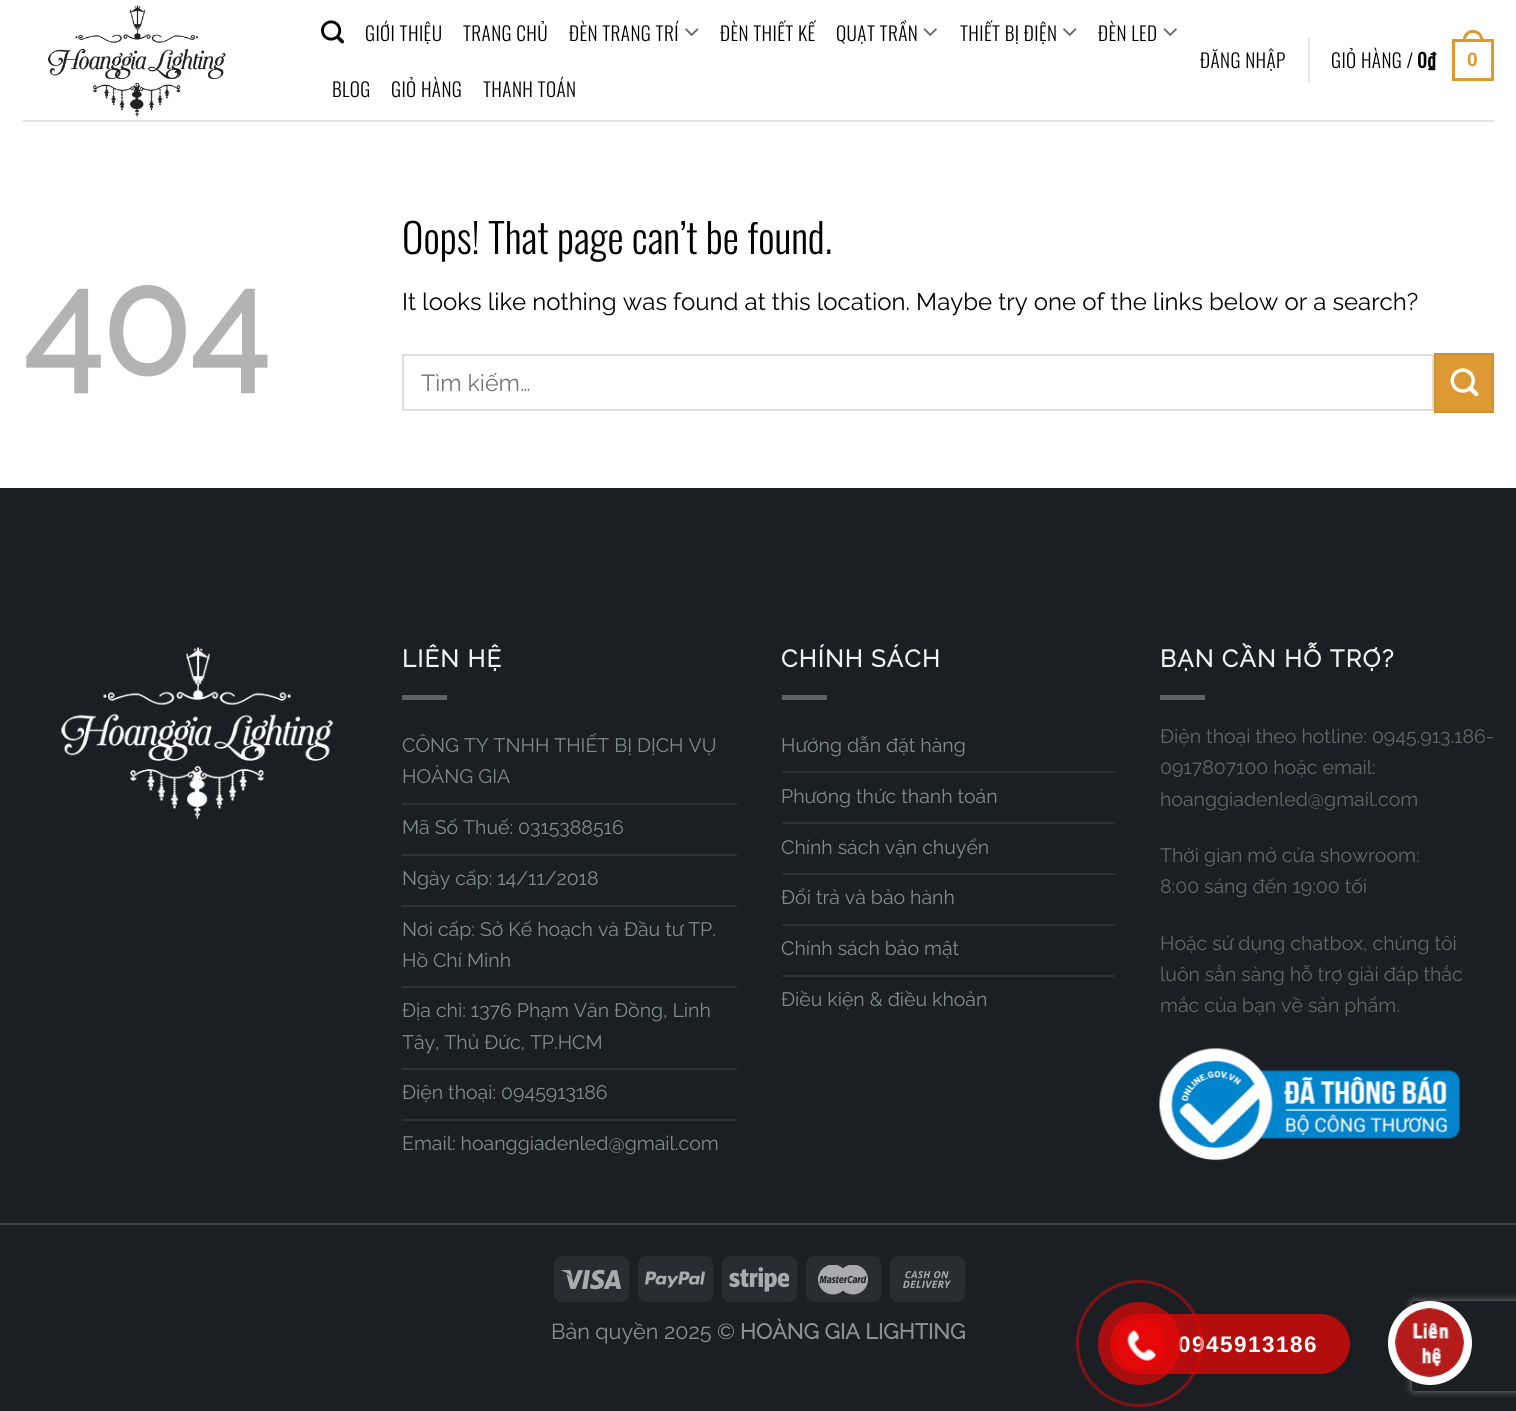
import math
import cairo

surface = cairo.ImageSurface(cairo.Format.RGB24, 1516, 1411)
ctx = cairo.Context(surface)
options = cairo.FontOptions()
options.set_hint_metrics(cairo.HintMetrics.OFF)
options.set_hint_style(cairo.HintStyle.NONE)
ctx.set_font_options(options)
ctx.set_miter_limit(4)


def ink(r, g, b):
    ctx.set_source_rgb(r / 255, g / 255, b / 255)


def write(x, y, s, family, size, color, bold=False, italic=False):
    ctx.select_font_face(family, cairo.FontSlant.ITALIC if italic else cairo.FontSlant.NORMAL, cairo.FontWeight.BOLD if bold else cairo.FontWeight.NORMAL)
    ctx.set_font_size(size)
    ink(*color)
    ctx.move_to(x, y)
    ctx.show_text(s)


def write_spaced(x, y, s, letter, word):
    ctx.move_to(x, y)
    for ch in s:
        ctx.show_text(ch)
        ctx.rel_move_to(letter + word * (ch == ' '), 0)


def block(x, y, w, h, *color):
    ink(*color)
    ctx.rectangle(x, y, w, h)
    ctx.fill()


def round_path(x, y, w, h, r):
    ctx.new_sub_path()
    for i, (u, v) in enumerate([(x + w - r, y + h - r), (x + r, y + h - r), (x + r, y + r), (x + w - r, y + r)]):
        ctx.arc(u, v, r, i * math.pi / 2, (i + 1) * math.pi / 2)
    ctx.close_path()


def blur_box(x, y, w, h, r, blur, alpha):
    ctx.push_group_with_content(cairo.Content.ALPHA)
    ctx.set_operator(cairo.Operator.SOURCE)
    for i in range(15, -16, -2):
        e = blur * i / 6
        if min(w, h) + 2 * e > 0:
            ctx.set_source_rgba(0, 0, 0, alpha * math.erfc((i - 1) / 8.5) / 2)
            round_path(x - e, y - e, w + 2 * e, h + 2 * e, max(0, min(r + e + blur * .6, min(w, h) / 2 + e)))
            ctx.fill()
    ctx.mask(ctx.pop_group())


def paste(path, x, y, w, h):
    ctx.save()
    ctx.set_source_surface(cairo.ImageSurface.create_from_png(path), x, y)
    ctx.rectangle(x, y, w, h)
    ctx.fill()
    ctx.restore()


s1 = dict(family="Raleway", size=144, color=(179, 179, 179), bold=True)
s2 = dict(family="Oswald Light", size=40.75, color=(0, 0, 0))
s3 = dict(family="Raleway Thin", size=24, color=(0, 0, 0))
s4 = dict(family="Raleway Thin", size=23.25, color=(117, 117, 117))
s5 = dict(family="Raleway Thin", size=19.5, color=(127, 140, 141))
s6 = dict(family="Raleway Thin", size=19.5, color=(102, 102, 102))
s7 = dict(family="Raleway Thin", size=21.6, color=(141, 143, 145))
s8 = dict(family="Raleway", size=21.6, color=(141, 143, 145), bold=True)

ink(27, 31, 35)
ctx.paint()
block(0, 0, 1516, 488, 255, 255, 255)
paste("pic1.png", 48, 5, 178, 113)
paste("pic2.png", 321, 20, 23, 24)
ctx.select_font_face("Oswald Light")
ctx.set_font_size(19.25)
ink(0, 0, 0)
write_spaced(365, 41, "GIỚI THIỆU", 0.4, 0)
write_spaced(463, 41, "TRANG CHỦ", 0.4, 0)
write_spaced(569, 41, "ĐÈN TRANG TRÍ", 0.4, 0)
paste("pic3.png", 685, 28, 14, 8)
write_spaced(720, 41, "ĐÈN THIẾT KẾ", 0.4, 0)
write_spaced(836, 41, "QUẠT TRẦN", 0.4, 0)
paste("pic4.png", 923, 28, 14, 8)
write_spaced(960, 41, "THIẾT BỊ ĐIỆN", 0.4, 0)
paste("pic3.png", 1063, 28, 14, 8)
write_spaced(1098, 41, "ĐÈN LED", 0.4, 0)
paste("pic4.png", 1163, 28, 14, 8)
write_spaced(332, 97, "BLOG", 0.4, 0)
write_spaced(391, 97, "GIỎ HÀNG", 0.4, 0)
write_spaced(483, 97, "THANH TOÁN", 0.4, 0)
write_spaced(1200, 68, "ĐĂNG NHẬP", 0.4, 0)
block(1308, 38, 2, 45, 230, 230, 230)
ink(0, 0, 0)
write_spaced(1331, 68, "GIỎ HÀNG /", 0.4, 0)
ctx.select_font_face("Oswald", cairo.FontSlant.NORMAL, cairo.FontWeight.BOLD)
write_spaced(1417, 68, "0₫", 0.4, 0)
ctx.rectangle(1453.5, 40.5, 39, 39)
ink(221, 153, 51)
ctx.set_line_width(3)
ctx.stroke()
ctx.set_fill_rule(cairo.FillRule.EVEN_ODD)
ctx.new_path()
ctx.move_to(1473, 30)
ctx.curve_to(1480, 30, 1483.5, 35.5, 1483.5, 42)
ctx.line_to(1462.5, 42)
ctx.curve_to(1462.5, 35.5, 1466, 30, 1473, 30)
ctx.close_path()
ctx.move_to(1473, 33)
ctx.curve_to(1478.5, 33, 1480.5, 37.5, 1480.5, 42)
ctx.line_to(1465.5, 42)
ctx.curve_to(1465.5, 37.5, 1467.5, 33, 1473, 33)
ctx.close_path()
ctx.fill()
ctx.select_font_face("Liberation Sans", cairo.FontSlant.NORMAL, cairo.FontWeight.BOLD)
write_spaced(1467, 66, "0", 0.4, 0)
block(23, 120, 1471, 2, 230, 230, 230)
write(23, 375, "404", **s1)
write(402, 254, "Oops! That page can’t be found.", **s2)
write(402, 310, "It looks like nothing was found at this location. Maybe try one of the links below or a search?", **s3)
ctx.rectangle(403, 355, 1030, 55)
ink(221, 221, 221)
ctx.set_line_width(2)
ctx.stroke()
write(421, 391, "Tìm kiếm…", **s4)
ink(221, 153, 51)
ctx.rectangle(1435, 354, 58, 58)
ctx.fill_preserve()
ink(210, 145, 48)
ctx.stroke()
paste("pic5.png", 1450, 368, 29, 29)
paste("pic6.png", 61, 647, 273, 173)
ctx.select_font_face("Raleway", cairo.FontSlant.NORMAL, cairo.FontWeight.BOLD)
ctx.set_font_size(24)
ink(241, 241, 241)
write_spaced(402, 667, "LIÊN HỆ", 1.25, 0)
block(402, 695, 45, 5, 95, 98, 101)
write(402, 752, "CÔNG TY TNHH THIẾT BỊ DỊCH VỤ", **s5)
write(402, 783, "HOÀNG GIA", **s5)
block(402, 803, 335, 2, 45, 49, 53)
write(402, 834, "Mã Số Thuế: 0315388516", **s5)
block(402, 854, 335, 2, 45, 49, 53)
write(402, 885, "Ngày cấp: 14/11/2018", **s5)
block(402, 905, 335, 2, 45, 49, 53)
write(402, 936, "Nơi cấp: Sở Kế hoạch và Đầu tư TP.", **s5)
write(402, 967, "Hồ Chí Minh", **s5)
block(402, 986, 335, 2, 45, 49, 53)
write(402, 1017, "Địa chỉ: 1376 Phạm Văn Đồng, Linh", **s5)
write(402, 1049, "Tây, Thủ Đức, TP.HCM", **s5)
block(402, 1068, 335, 2, 45, 49, 53)
write(402, 1099, "Điện thoại: 0945913186", **s5)
block(402, 1119, 335, 2, 45, 49, 53)
write(402, 1150, "Email: hoanggiadenled@gmail.com", **s5)
ctx.select_font_face("Raleway", cairo.FontSlant.NORMAL, cairo.FontWeight.BOLD)
ctx.set_font_size(24)
ink(241, 241, 241)
write_spaced(781, 667, "CHÍNH SÁCH", 1.25, 0)
block(782, 695, 45, 5, 95, 98, 101)
write(781, 752, "Hướng dẫn đặt hàng", **s5)
block(782, 771, 333, 2, 45, 49, 53)
write(781, 803, "Phương thức thanh toán", **s5)
block(782, 822, 333, 2, 45, 49, 53)
write(781, 854, "Chính sách vận chuyển", **s5)
block(782, 873, 333, 2, 45, 49, 53)
write(781, 904, "Đổi trả và bảo hành", **s5)
block(782, 924, 333, 2, 45, 49, 53)
write(781, 955, "Chính sách bảo mật", **s5)
block(782, 975, 333, 2, 45, 49, 53)
write(781, 1006, "Điều kiện & điều khoản", **s5)
ctx.select_font_face("Raleway", cairo.FontSlant.NORMAL, cairo.FontWeight.BOLD)
ctx.set_font_size(24)
ink(241, 241, 241)
write_spaced(1160, 667, "BẠN CẦN HỖ TRỢ?", 1.25, 0)
block(1160, 695, 45, 5, 95, 98, 101)
write(1160, 743, "Điện thoại theo hotline: 0945.913.186-", **s6)
write(1160, 774, "0917807100 hoặc email:", **s6)
write(1160, 806, "hoanggiadenled@gmail.com", **s6)
write(1160, 862, "Thời gian mở cửa showroom:", **s6)
write(1160, 893, "8:00 sáng đến 19:00 tối", **s6)
write(1160, 950, "Hoặc sử dụng chatbox, chúng tôi", **s6)
write(1160, 981, "luôn sẳn sàng hỗ trợ giải đáp thắc", **s6)
write(1160, 1012, "mắc của bạn về sản phẩm.", **s6)
paste("pic7.png", 1159, 1048, 301, 113)
block(0, 1223, 1516, 2, 60, 67, 70)
ink(41, 44, 48)
round_path(554, 1256, 75, 46, 8)
ctx.fill()
paste("pic8.png", 561, 1269, 60, 21)
round_path(638, 1256, 75, 46, 8)
ctx.fill()
paste("pic9.png", 645, 1271, 60, 17)
round_path(722, 1256, 75, 46, 8)
ctx.fill()
paste("pic10.png", 729, 1267, 60, 25)
round_path(806, 1256, 75, 46, 8)
ctx.fill()
paste("pic11.png", 818, 1265, 50, 30)
round_path(890, 1256, 75, 46, 8)
ctx.fill()
paste("pic12.png", 903, 1271, 48, 17)
write(551, 1339, "Bản quyền 2025 ©", **s7)
write(740, 1339, "HOÀNG GIA LIGHTING", **s8)
ctx.save()
ctx.new_path()
ctx.move_to(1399, 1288)
ctx.line_to(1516, 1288)
ctx.line_to(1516, 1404)
ctx.line_to(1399, 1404)
ctx.close_path()
ctx.move_to(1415, 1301)
ctx.line_to(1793, 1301)
ctx.curve_to(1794.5, 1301, 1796, 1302.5, 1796, 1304)
ctx.line_to(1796, 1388)
ctx.curve_to(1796, 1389.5, 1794.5, 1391, 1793, 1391)
ctx.line_to(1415, 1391)
ctx.curve_to(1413.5, 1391, 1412, 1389.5, 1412, 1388)
ctx.line_to(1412, 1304)
ctx.curve_to(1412, 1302.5, 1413.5, 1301, 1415, 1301)
ctx.close_path()
ctx.clip()
ink(128, 128, 128)
blur_box(1412, 1301, 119, 90, 3, 4, 1)
ctx.restore()
ctx.set_source_rgba(0.902, 0.031, 0.031, 0.75)
round_path(1110, 1314, 240, 60, 30)
ctx.fill()
ctx.select_font_face("Liberation Sans", cairo.FontSlant.NORMAL, cairo.FontWeight.BOLD)
ctx.set_font_size(22.5)
ink(255, 255, 255)
write_spaced(1178, 1352, "0945913186", 1.5, 0)
ctx.new_path()
ctx.arc(1139.5, 1343.5, 62, 0, 2 * math.pi)
ctx.set_source_rgba(0.902, 0.031, 0.031, 0.5)
ctx.set_line_width(3)
ctx.stroke()
ctx.set_source_rgba(0.902, 0.031, 0.031, 0.7)
ctx.arc(1139.5, 1343.5, 41.5, 0, 2 * math.pi)
ctx.fill()
ink(230, 8, 8)
ctx.arc(1141, 1345, 25, 0, 2 * math.pi)
ctx.fill()
paste("pic13.png", 1127, 1330, 29, 31)
ink(255, 255, 255)
ctx.arc(1430, 1343, 38, 0, 2 * math.pi)
ctx.fill_preserve()
ctx.set_line_width(8)
ctx.stroke()
paste("pic14.png", 1395, 1308, 69, 69)
surface.write_to_png("screenshot.png")
